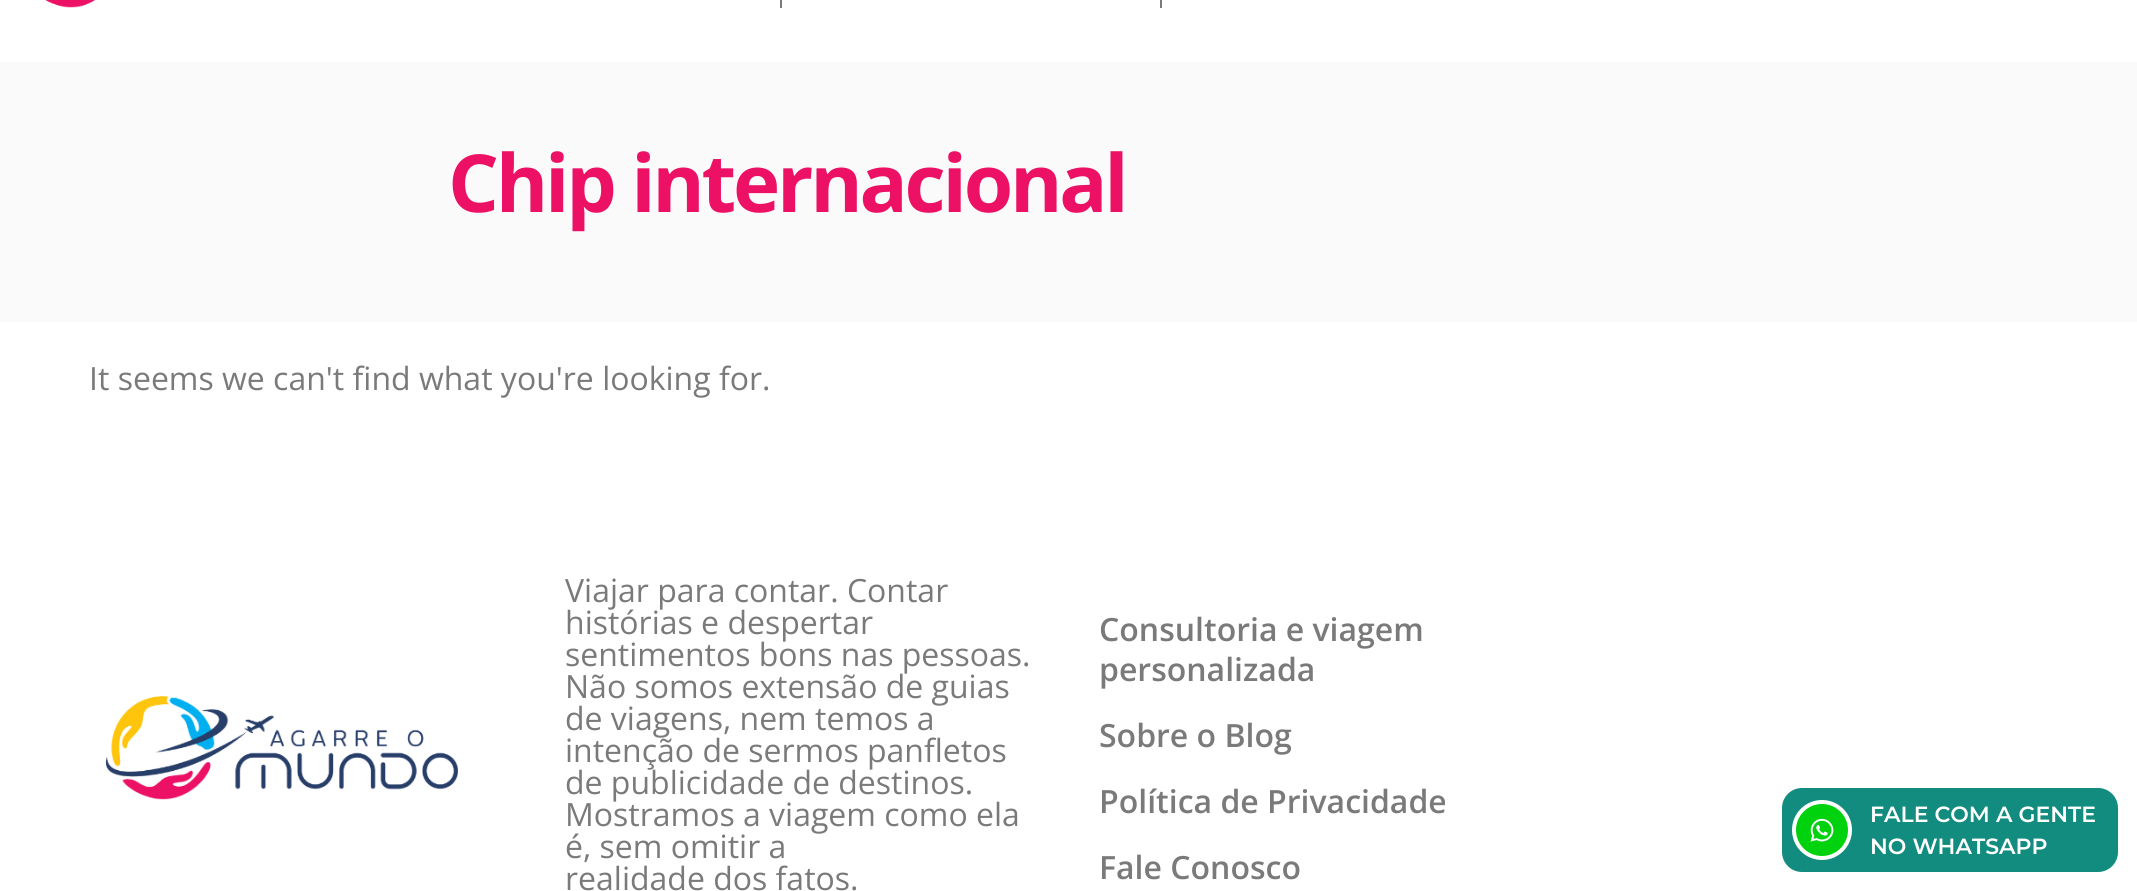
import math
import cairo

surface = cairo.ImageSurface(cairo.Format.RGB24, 2137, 891)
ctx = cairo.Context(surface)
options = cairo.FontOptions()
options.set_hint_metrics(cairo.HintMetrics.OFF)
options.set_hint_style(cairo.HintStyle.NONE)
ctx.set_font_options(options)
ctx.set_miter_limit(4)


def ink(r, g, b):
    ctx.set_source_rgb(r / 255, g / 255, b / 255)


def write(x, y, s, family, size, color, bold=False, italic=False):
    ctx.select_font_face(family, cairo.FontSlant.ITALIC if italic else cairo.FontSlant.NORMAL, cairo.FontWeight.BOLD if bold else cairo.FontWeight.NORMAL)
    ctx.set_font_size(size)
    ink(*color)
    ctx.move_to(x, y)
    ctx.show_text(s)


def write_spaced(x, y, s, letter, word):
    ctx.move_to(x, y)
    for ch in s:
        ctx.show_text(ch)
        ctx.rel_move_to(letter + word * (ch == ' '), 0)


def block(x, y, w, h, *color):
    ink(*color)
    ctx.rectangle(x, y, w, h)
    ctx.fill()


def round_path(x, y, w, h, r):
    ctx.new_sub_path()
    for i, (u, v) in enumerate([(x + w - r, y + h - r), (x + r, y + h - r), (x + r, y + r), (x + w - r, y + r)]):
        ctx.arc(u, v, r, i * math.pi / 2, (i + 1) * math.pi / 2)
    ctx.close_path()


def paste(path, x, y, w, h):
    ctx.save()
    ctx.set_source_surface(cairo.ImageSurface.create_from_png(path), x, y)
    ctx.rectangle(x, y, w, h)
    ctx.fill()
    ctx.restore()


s1 = dict(family="Open Sans", size=32, color=(122, 122, 122))
s2 = dict(family="Open Sans SemiBold", size=32, color=(122, 122, 122))
s3 = dict(family="Montserrat SemiBold", size=22, color=(255, 255, 255))

ink(255, 255, 255)
ctx.paint()
paste("pic1.png", 45, 0, 51, 8)
block(780, 0, 2, 8, 122, 122, 122)
block(1160, 0, 2, 8, 122, 122, 122)
block(0, 62, 2137, 260, 250, 250, 250)
ctx.select_font_face("Open Sans", cairo.FontSlant.NORMAL, cairo.FontWeight.BOLD)
ctx.set_font_size(80)
ink(236, 17, 101)
write_spaced(448, 212, "Chip internacional", -3.25, 0)
write(89, 390, "It seems we can't find what you're looking for.", **s1)
paste("pic2.png", 106, 696, 352, 104)
write(565, 602, "Viajar para contar. Contar", **s1)
write(565, 634, "histórias e despertar", **s1)
write(565, 666, "sentimentos bons nas pessoas.", **s1)
write(565, 698, "Não somos extensão de guias", **s1)
write(565, 730, "de viagens, nem temos a", **s1)
write(565, 762, "intenção de sermos panfletos", **s1)
write(565, 794, "de publicidade de destinos.", **s1)
write(565, 826, "Mostramos a viagem como ela", **s1)
write(565, 858, "é, sem omitir a", **s1)
write(565, 890, "realidade dos fatos.", **s1)
write(1099, 641, "Consultoria e viagem", **s2)
write(1099, 681, "personalizada", **s2)
write(1099, 747, "Sobre o Blog", **s2)
write(1099, 813, "Política de Privacidade", **s2)
write(1099, 879, "Fale Conosco", **s2)
ink(18, 140, 126)
round_path(1782, 788, 336, 84, 20)
ctx.fill()
ink(0, 210, 13)
ctx.arc(1822, 830, 28, 0, 2 * math.pi)
ctx.fill_preserve()
ink(255, 255, 255)
ctx.set_line_width(4)
ctx.stroke()
paste("pic3.png", 1810, 818, 24, 24)
write(1870, 822, "FALE COM A GENTE", **s3)
write(1870, 854, "NO WHATSAPP", **s3)
surface.write_to_png("screenshot.png")
